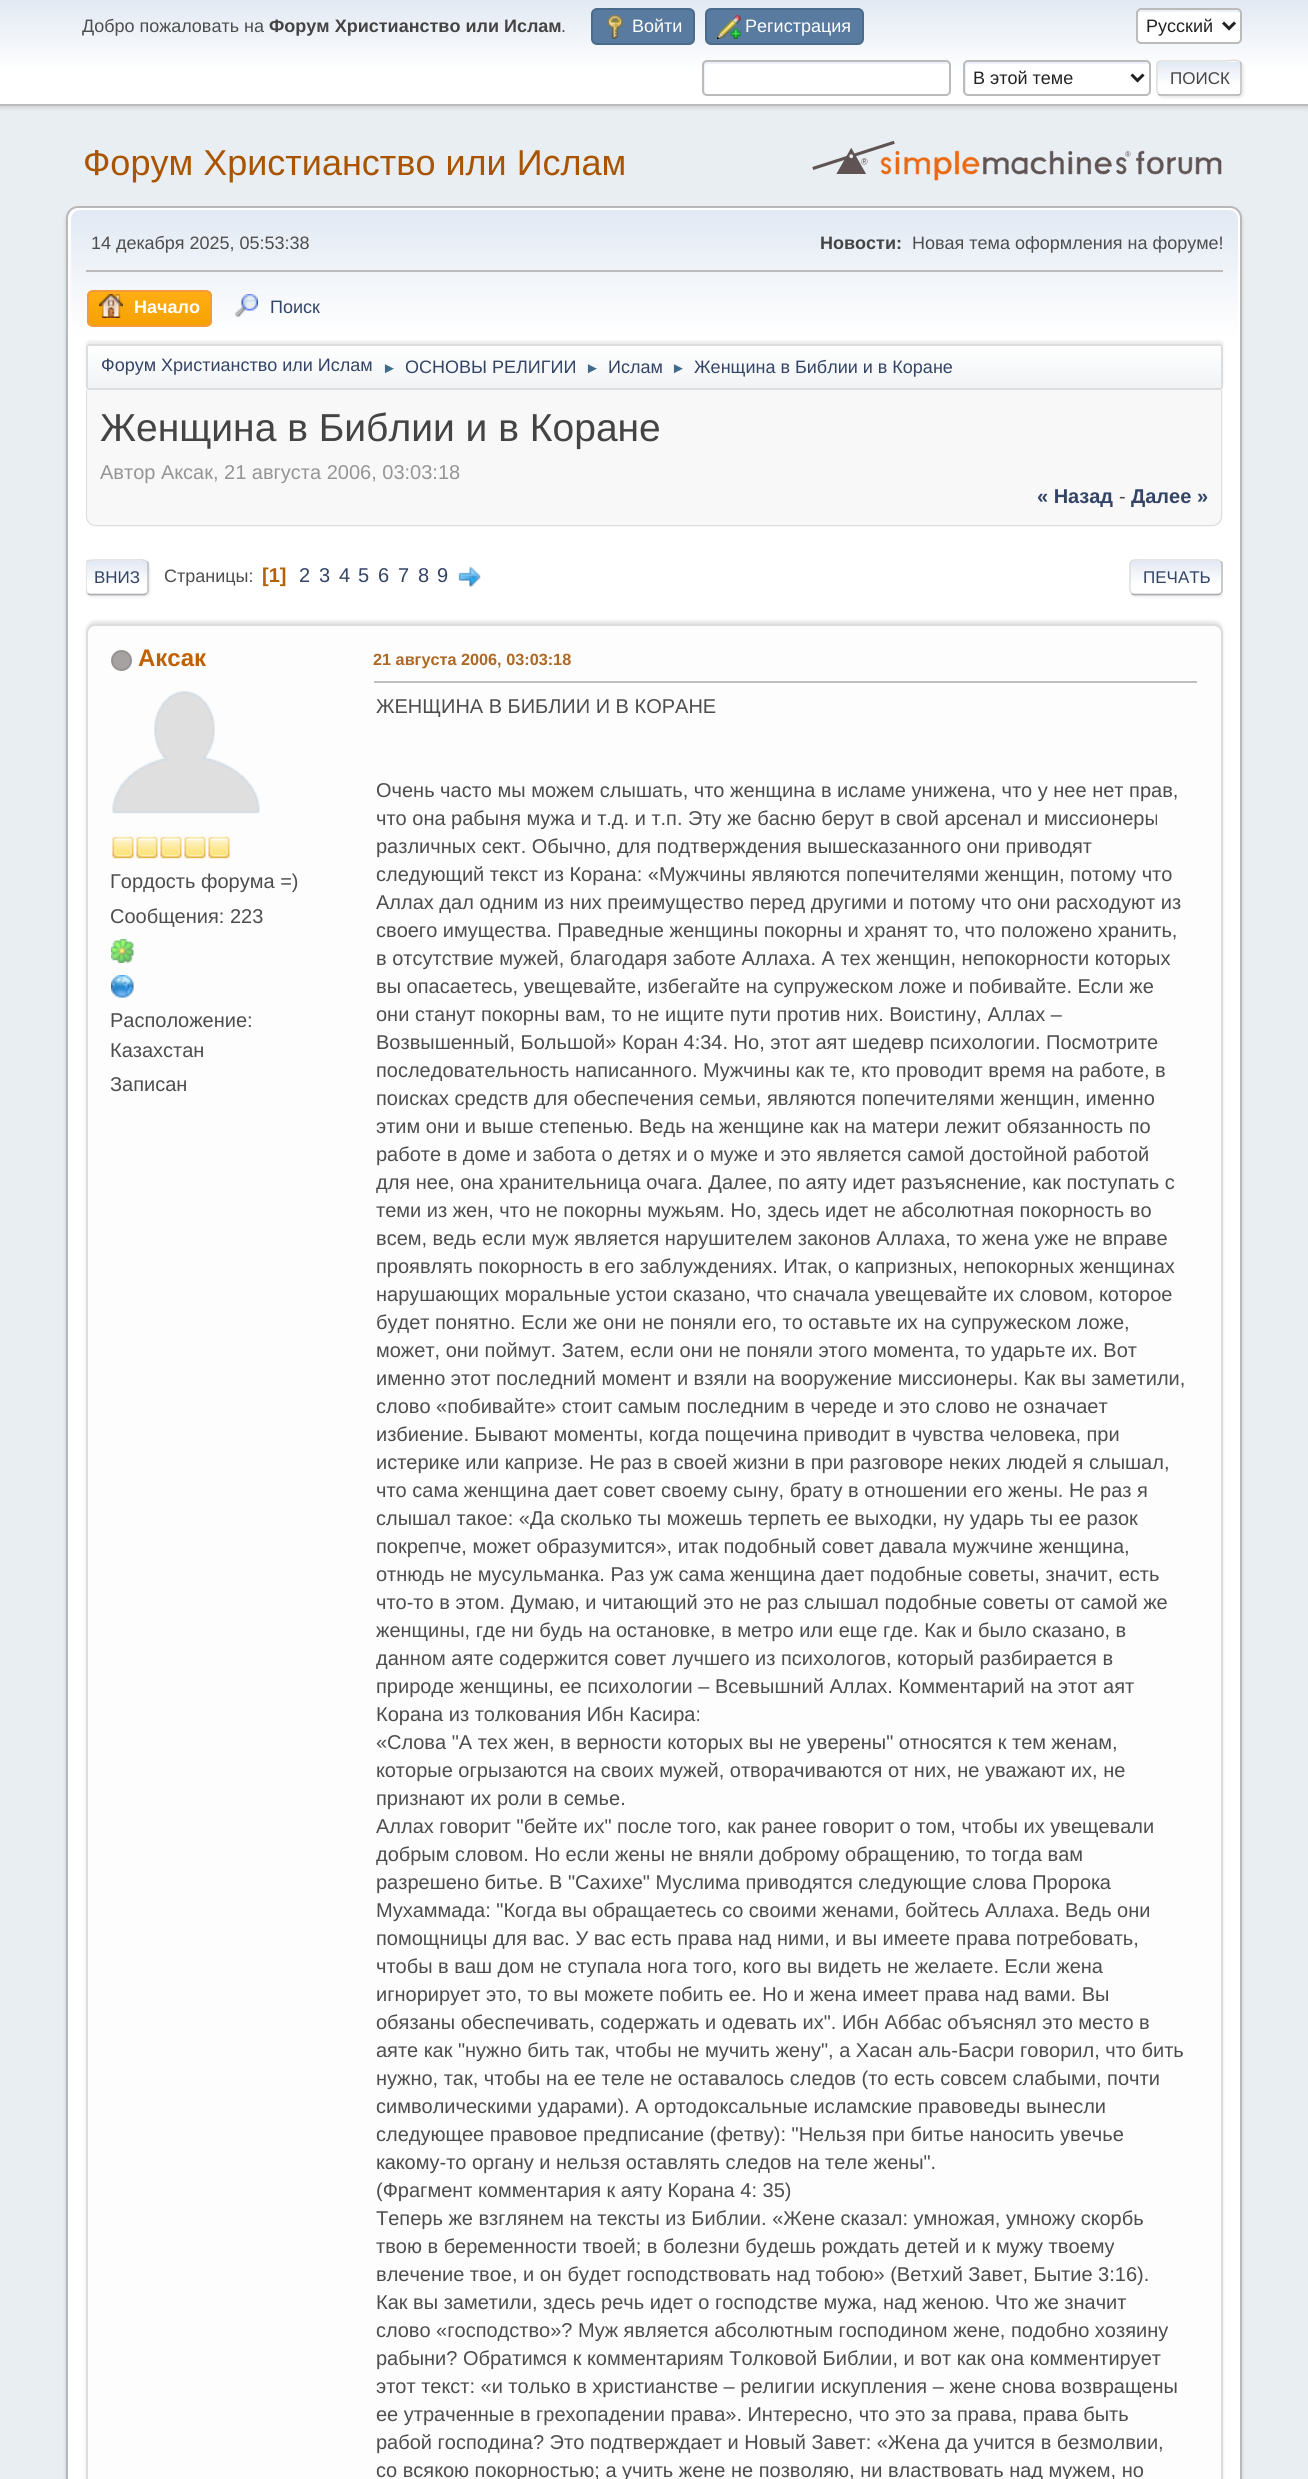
import math
import cairo

surface = cairo.ImageSurface(cairo.Format.RGB24, 1308, 2479)
ctx = cairo.Context(surface)
options = cairo.FontOptions()
options.set_hint_metrics(cairo.HintMetrics.OFF)
options.set_hint_style(cairo.HintStyle.NONE)
ctx.set_font_options(options)
ctx.set_miter_limit(4)


def ink(r, g, b):
    ctx.set_source_rgb(r / 255, g / 255, b / 255)


def write(x, y, s, family, size, color, bold=False, italic=False):
    ctx.select_font_face(family, cairo.FontSlant.ITALIC if italic else cairo.FontSlant.NORMAL, cairo.FontWeight.BOLD if bold else cairo.FontWeight.NORMAL)
    ctx.set_font_size(size)
    ink(*color)
    ctx.move_to(x, y)
    ctx.show_text(s)


def block(x, y, w, h, *color):
    ink(*color)
    ctx.rectangle(x, y, w, h)
    ctx.fill()


def round_path(x, y, w, h, r):
    ctx.new_sub_path()
    for i, (u, v) in enumerate([(x + w - r, y + h - r), (x + r, y + h - r), (x + r, y + r), (x + w - r, y + r)]):
        ctx.arc(u, v, r, i * math.pi / 2, (i + 1) * math.pi / 2)
    ctx.close_path()


def blur_box(x, y, w, h, r, blur, alpha):
    ctx.push_group_with_content(cairo.Content.ALPHA)
    ctx.set_operator(cairo.Operator.SOURCE)
    for i in range(15, -16, -2):
        e = blur * i / 6
        if min(w, h) + 2 * e > 0:
            ctx.set_source_rgba(0, 0, 0, alpha * math.erfc((i - 1) / 8.5) / 2)
            round_path(x - e, y - e, w + 2 * e, h + 2 * e, max(0, min(r + e + blur * .6, min(w, h) / 2 + e)))
            ctx.fill()
    ctx.mask(ctx.pop_group())


def paste(path, x, y, w, h):
    ctx.save()
    ctx.set_source_surface(cairo.ImageSurface.create_from_png(path), x, y)
    ctx.rectangle(x, y, w, h)
    ctx.fill()
    ctx.restore()


s1 = dict(family="Liberation Sans", size=18, color=(77, 77, 77))
s2 = dict(family="Liberation Sans", size=18, color=(68, 68, 68), bold=True)
s3 = dict(family="Liberation Sans", size=18, color=(255, 255, 255))
s4 = dict(family="Liberation Sans", size=18, color=(34, 34, 34))
s5 = dict(family="Liberation Sans", size=17, color=(68, 68, 68))
s6 = dict(family="Liberation Sans", size=36, color=(168, 84, 0))
s7 = dict(family="Liberation Sans", size=18, color=(255, 255, 255), bold=True)
s8 = dict(family="Liberation Sans", size=18, color=(51, 68, 102))
s9 = dict(family="Liberation Sans", size=15, color=(63, 107, 140))
s10 = dict(family="Liberation Sans", size=39, color=(68, 68, 68))
s11 = dict(family="Liberation Sans", size=20, color=(149, 149, 149))
s12 = dict(family="Liberation Sans", size=20, color=(51, 68, 102), bold=True)
s13 = dict(family="Liberation Sans", size=20, color=(77, 77, 77))
s14 = dict(family="Liberation Sans", size=17, color=(51, 68, 102))
s15 = dict(family="Liberation Sans", size=20, color=(180, 97, 0), bold=True)
s16 = dict(family="Liberation Sans", size=20, color=(51, 68, 102))
s17 = dict(family="Liberation Sans", size=24, color=(192, 96, 2), bold=True)
s18 = dict(family="Liberation Sans", size=16.25, color=(173, 104, 37), bold=True)

ink(233, 238, 242)
ctx.paint()
ink(0, 0, 0)
blur_box(0, 2, 1308, 105, 0, 3, 0.16)
gradient = cairo.LinearGradient(654, 0, 654, 104)
gradient.add_color_stop_rgba(0, 0.886, 0.914, 0.953, 1)
gradient.add_color_stop_rgba(0.7, 1, 1, 1, 1)
ctx.set_source(gradient)
ctx.rectangle(0, 0, 1308, 104)
ctx.fill()
block(0, 104, 1308, 2, 187, 187, 187)
write(82, 32, "Добро пожаловать на", **s1)
write(269, 32, "Форум Христианство или Ислам", **s2)
write(561, 32, ".", **s1)
ink(89, 123, 159)
round_path(592, 9, 102, 35, 5)
ctx.fill_preserve()
ink(74, 107, 140)
ctx.stroke()
paste("pic1.png", 607, 15, 16, 24)
write(632, 32, "Войти", **s3)
ink(89, 123, 159)
round_path(706, 9, 157, 35, 5)
ctx.fill_preserve()
ink(74, 107, 140)
ctx.stroke()
paste("pic2.png", 717, 15, 24, 24)
write(745, 32, "Регистрация", **s3)
round_path(1136, 8, 106, 36, 5)
ctx.fill()
ink(236, 241, 248)
ctx.new_path()
ctx.move_to(1142, 12)
ctx.curve_to(1152, 12, 1239, 11, 1241, 13)
ctx.curve_to(1241, 6, 1229, 9, 1222, 9)
ctx.line_to(1156, 9)
ctx.curve_to(1134, 9, 1137, 5, 1137, 26)
ctx.curve_to(1137, 28, 1136, 39, 1138, 41)
ctx.line_to(1138, 15)
ctx.curve_to(1138, 13, 1140, 12, 1142, 12)
ctx.close_path()
ctx.fill()
round_path(1137, 9, 104, 34, 4)
ink(187, 187, 187)
ctx.stroke()
ctx.new_path()
ctx.move_to(1223, 22.5)
ctx.line_to(1229, 28.5)
ctx.line_to(1235, 22.5)
ink(34, 34, 34)
ctx.set_line_width(3)
ctx.stroke()
write(1146, 32, "Русский", **s4)
ink(255, 255, 255)
round_path(702, 60, 249, 36, 5)
ctx.fill()
ink(236, 241, 248)
ctx.new_path()
ctx.move_to(708, 64)
ctx.line_to(948, 64)
ctx.line_to(950, 65)
ctx.curve_to(950, 63, 949, 62, 947, 62)
ctx.line_to(707, 62)
ctx.curve_to(705, 62, 704, 63, 704, 65)
ctx.line_to(704, 92)
ctx.curve_to(704, 93, 704, 94, 705, 94)
ctx.line_to(705, 72)
ctx.curve_to(705, 70, 704, 64, 708, 64)
ctx.close_path()
ctx.fill()
round_path(703, 61, 247, 34, 4)
ink(187, 187, 187)
ctx.set_line_width(2)
ctx.stroke()
ink(255, 255, 255)
round_path(963, 60, 188, 36, 5)
ctx.fill()
ink(236, 241, 248)
ctx.new_path()
ctx.move_to(969, 64)
ctx.line_to(1148, 64)
ctx.line_to(1149, 65)
ctx.curve_to(1149, 63, 1148, 62, 1146, 62)
ctx.line_to(968, 62)
ctx.curve_to(966, 62, 965, 63, 965, 65)
ctx.line_to(965, 92)
ctx.curve_to(965, 93, 965, 94, 966, 94)
ctx.line_to(966, 72)
ctx.curve_to(966, 70, 965, 64, 969, 64)
ctx.close_path()
ctx.fill()
round_path(964, 61, 186, 34, 4)
ink(187, 187, 187)
ctx.stroke()
ctx.new_path()
ctx.move_to(1131.5, 74.5)
ctx.line_to(1137.5, 80.5)
ctx.line_to(1143.5, 74.5)
ink(34, 34, 34)
ctx.set_line_width(3)
ctx.stroke()
write(973, 84, "В этой теме", **s4)
ink(221, 221, 221)
blur_box(1158, 62, 86, 36, 5, 1, 0.57)
ink(255, 255, 255)
round_path(1157, 60, 85, 36, 5)
ctx.fill()
ctx.save()
round_path(1157, 60, 85, 36, 5)
ctx.clip()
gradient = cairo.LinearGradient(1199, 62, 1199, 95)
gradient.add_color_stop_rgba(0, 0.886, 0.914, 0.953, 1)
gradient.add_color_stop_rgba(0.7, 1, 1, 1, 1)
ctx.set_source(gradient)
ctx.rectangle(1157, 62, 85, 33)
ctx.fill()
ctx.restore()
ctx.new_path()
ctx.move_to(1240, 62)
ctx.curve_to(1241, 62.5, 1241, 63.5, 1241, 64.5)
ctx.line_to(1241, 91.5)
ctx.curve_to(1241, 92.5, 1241, 93.5, 1240, 94)
ink(187, 187, 187)
ctx.set_line_width(1.5)
ctx.stroke()
ctx.new_path()
ctx.move_to(1240, 94)
ctx.curve_to(1239.5, 95, 1238.5, 95, 1237.5, 95)
ctx.line_to(1161, 95)
ctx.curve_to(1160, 95, 1159, 95, 1158.5, 94)
ink(170, 170, 170)
ctx.stroke()
ctx.new_path()
ctx.move_to(1158.5, 94)
ctx.curve_to(1156, 92, 1157, 81, 1157, 78)
ctx.curve_to(1157, 58.5, 1154, 61, 1174, 61)
ctx.line_to(1225, 61)
ctx.curve_to(1225, 61, 1237, 59, 1240, 62)
ink(221, 221, 221)
ctx.stroke()
write(1170, 84, "ПОИСК", **s5)
write(83, 175, "Форум Христианство или Ислам", **s6)
paste("pic3.png", 812, 140, 410, 41)
ink(0, 0, 0)
blur_box(66, 209, 1176, 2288, 12, 2, 0.14)
ink(255, 255, 255)
round_path(67, 207, 1174, 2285, 11)
ctx.fill_preserve()
ink(184, 184, 184)
ctx.set_line_width(2)
ctx.stroke()
gradient = cairo.LinearGradient(654, 210, 654, 393)
gradient.add_color_stop_rgba(0, 0.886, 0.914, 0.953, 1)
gradient.add_color_stop_rgba(0.7, 1, 1, 1, 1)
ctx.set_source(gradient)
ctx.new_path()
ctx.move_to(80, 210)
ctx.line_to(1229, 210)
ctx.curve_to(1234, 210, 1238, 214, 1238, 219)
ctx.line_to(1238, 393)
ctx.line_to(71, 393)
ctx.line_to(71, 219)
ctx.curve_to(71, 214, 75, 210, 80, 210)
ctx.close_path()
ctx.fill()
block(86, 270, 1137, 2, 187, 187, 187)
write(91, 249, "14 декабря 2025, 05:53:38", **s1)
write(820, 249, "Новости:", **s2)
write(912, 249, "Новая тема оформления на форуме!", **s1)
ctx.save()
round_path(87, 290, 125, 37, 6)
ctx.clip()
gradient = cairo.LinearGradient(149, 291, 149, 326)
gradient.add_color_stop_rgba(0, 1, 0.682, 0.078, 1)
gradient.add_color_stop_rgba(1, 0.961, 0.631, 0, 1)
ctx.set_source(gradient)
ctx.rectangle(87, 291, 125, 35)
ctx.fill()
ctx.restore()
round_path(88, 291, 123, 35, 5)
ink(244, 154, 58)
ctx.stroke()
paste("pic4.png", 99, 294, 24, 24)
write(134, 313, "Начало", **s7)
paste("pic5.png", 235, 294, 23, 23)
write(270, 313, "Поиск", **s8)
ink(0, 0, 0)
blur_box(86, 341, 1137, 46, 3, 1.5, 0.08)
ctx.save()
round_path(86, 344, 1137, 46, 3)
ctx.clip()
gradient = cairo.LinearGradient(654, 345, 654, 389)
gradient.add_color_stop_rgba(0, 1, 1, 1, 1)
gradient.add_color_stop_rgba(0.95, 0.945, 0.953, 0.961, 1)
ctx.set_source(gradient)
ctx.rectangle(86, 345, 1137, 44)
ctx.fill()
ctx.restore()
round_path(87, 345, 1135, 44, 2)
ink(221, 221, 221)
ctx.stroke()
write(101, 371, "Форум Христианство или Ислам", **s8)
write(382, 373, "►", **s9)
write(405, 373, "ОСНОВЫ РЕЛИГИИ", **s8)
write(585, 373, "►", **s9)
write(608, 373, "Ислам", **s8)
write(671, 373, "►", **s9)
write(694, 373, "Женщина в Библии и в Коране", **s8)
ink(248, 248, 248)
ctx.new_path()
ctx.move_to(86, 390)
ctx.line_to(1223, 390)
ctx.line_to(1223, 516)
ctx.curve_to(1223, 522, 1218, 527, 1212, 527)
ctx.line_to(97, 527)
ctx.curve_to(91, 527, 86, 522, 86, 516)
ctx.close_path()
ctx.fill()
ink(221, 221, 221)
ctx.set_fill_rule(cairo.FillRule.EVEN_ODD)
ctx.new_path()
ctx.move_to(86, 390)
ctx.line_to(1222, 390)
ctx.line_to(1222, 516)
ctx.curve_to(1222, 522, 1218, 526, 1212, 526)
ctx.line_to(96, 526)
ctx.curve_to(90, 526, 86, 522, 86, 516)
ctx.close_path()
ctx.move_to(87, 390)
ctx.line_to(1221, 390)
ctx.line_to(1221, 516)
ctx.curve_to(1221, 521, 1217, 525, 1212, 525)
ctx.line_to(96, 525)
ctx.curve_to(91, 525, 87, 521, 87, 516)
ctx.close_path()
ctx.fill()
write(100, 441, "Женщина в Библии и в Коране", **s10)
write(100, 479, "Автор Аксак, 21 августа 2006, 03:03:18", **s11)
write(1037, 503, "« Назад", **s12)
write(1119, 503, "-", **s13)
write(1131, 503, "Далее »", **s12)
ink(221, 221, 221)
blur_box(87, 561, 63, 36, 5, 1, 0.57)
ink(255, 255, 255)
round_path(86, 560, 63, 36, 5)
ctx.fill()
ctx.save()
ctx.set_fill_rule(cairo.FillRule.WINDING)
round_path(86, 560, 63, 36, 5)
ctx.clip()
gradient = cairo.LinearGradient(117, 561, 117, 594)
gradient.add_color_stop_rgba(0, 0.886, 0.914, 0.953, 1)
gradient.add_color_stop_rgba(0.7, 1, 1, 1, 1)
ctx.set_source(gradient)
ctx.rectangle(86, 561, 63, 33)
ctx.fill()
gradient = cairo.LinearGradient(117, 594, 117, 627)
gradient.add_color_stop_rgba(0, 0.886, 0.914, 0.953, 1)
gradient.add_color_stop_rgba(0.7, 1, 1, 1, 1)
ctx.set_source(gradient)
ctx.rectangle(86, 594, 63, 2)
ctx.fill()
ctx.restore()
ctx.new_path()
ctx.move_to(146.5, 561.5)
ctx.curve_to(147.5, 562, 148, 563, 148, 564)
ctx.line_to(148, 591)
ctx.curve_to(148, 592, 147.5, 593, 146.5, 593.5)
ink(187, 187, 187)
ctx.set_line_width(1.5)
ctx.stroke()
ctx.new_path()
ctx.move_to(146.5, 593.5)
ctx.line_to(144.5, 594.5)
ctx.line_to(89.5, 594.5)
ctx.line_to(87.5, 593.5)
ink(170, 170, 170)
ctx.stroke()
ctx.save()
ctx.set_fill_rule(cairo.FillRule.WINDING)
ctx.rectangle(86, 549, 1137, 57)
ctx.clip()
ctx.new_path()
ctx.move_to(87.5, 593.5)
ctx.curve_to(85, 591.5, 86, 580.5, 86, 577.5)
ctx.curve_to(86, 560, 82.5, 560, 99, 560)
ctx.line_to(135, 560)
ctx.curve_to(136, 560, 144, 559, 146.5, 561.5)
ink(221, 221, 221)
ctx.stroke()
ctx.restore()
write(94, 583, "ВНИЗ", **s14)
write(164, 582, "Страницы:", **s1)
write(262, 582, "[1]", **s15)
write(299, 582, "2", **s16)
write(319, 582, "3", **s16)
write(339, 582, "4", **s16)
write(358, 582, "5", **s16)
write(378, 582, "6", **s16)
write(398, 582, "7", **s16)
write(418, 582, "8", **s16)
write(437, 582, "9", **s16)
paste("pic6.png", 458, 566, 23, 21)
ctx.save()
ctx.set_fill_rule(cairo.FillRule.WINDING)
ctx.rectangle(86, 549, 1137, 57)
ctx.clip()
ink(221, 221, 221)
blur_box(1131, 561, 93, 36, 5, 1, 0.57)
ctx.restore()
ink(255, 255, 255)
round_path(1130, 560, 93, 36, 5)
ctx.fill()
ctx.save()
ctx.set_fill_rule(cairo.FillRule.WINDING)
round_path(1130, 560, 93, 36, 5)
ctx.clip()
gradient = cairo.LinearGradient(1176, 561, 1176, 594)
gradient.add_color_stop_rgba(0, 0.886, 0.914, 0.953, 1)
gradient.add_color_stop_rgba(0.7, 1, 1, 1, 1)
ctx.set_source(gradient)
ctx.rectangle(1130, 561, 93, 33)
ctx.fill()
gradient = cairo.LinearGradient(1176, 594, 1176, 627)
gradient.add_color_stop_rgba(0, 0.886, 0.914, 0.953, 1)
gradient.add_color_stop_rgba(0.7, 1, 1, 1, 1)
ctx.set_source(gradient)
ctx.rectangle(1130, 594, 93, 2)
ctx.fill()
ctx.restore()
ctx.new_path()
ctx.move_to(1220.5, 561.5)
ctx.curve_to(1221.5, 562, 1222, 563, 1222, 564)
ctx.line_to(1222, 591)
ctx.curve_to(1222, 592, 1221.5, 593, 1220.5, 593.5)
ink(187, 187, 187)
ctx.stroke()
ctx.new_path()
ctx.move_to(1220.5, 593.5)
ctx.line_to(1218.5, 594.5)
ctx.line_to(1133.5, 594.5)
ctx.line_to(1131.5, 593.5)
ink(170, 170, 170)
ctx.stroke()
ctx.new_path()
ctx.move_to(1131.5, 593.5)
ctx.curve_to(1129, 591.5, 1130, 580.5, 1130, 577.5)
ctx.curve_to(1130, 557.5, 1127, 560, 1148, 560)
ctx.line_to(1218, 560)
ctx.line_to(1220.5, 561.5)
ink(221, 221, 221)
ctx.stroke()
write(1143, 583, "ПЕЧАТЬ", **s14)
ink(0, 0, 0)
blur_box(86, 621, 1137, 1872, 9, 1.5, 0.1)
ink(253, 253, 253)
round_path(87, 625, 1135, 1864, 8)
ctx.fill_preserve()
ink(221, 221, 221)
ctx.set_line_width(2)
ctx.stroke()
ink(167, 162, 162)
ctx.arc(121.5, 660.5, 9.5, 0, 2 * math.pi)
ctx.fill_preserve()
ink(150, 146, 146)
ctx.stroke()
write(138, 666, "Аксак", **s17)
paste("pic7.png", 112, 691, 148, 123)
paste("pic8.png", 112, 836, 22, 23)
paste("pic8.png", 136, 836, 22, 23)
paste("pic8.png", 160, 836, 22, 23)
paste("pic8.png", 184, 836, 22, 23)
paste("pic8.png", 208, 836, 22, 23)
write(110, 888, "Гордость форума =)", **s13)
write(110, 923, "Сообщения: 223", **s13)
paste("pic9.png", 111, 939, 23, 24)
paste("pic10.png", 111, 975, 23, 23)
write(110, 1027, "Расположение:", **s13)
write(110, 1057, "Казахстан", **s13)
write(110, 1091, "Записан", **s13)
write(373, 665, "21 августа 2006, 03:03:18", **s18)
block(374, 681, 823, 2, 191, 191, 191)
write(376, 713, "ЖЕНЩИНА В БИБЛИИ И В КОРАНЕ", **s13)
write(376, 797, "Очень часто мы можем слышать, что женщина в исламе унижена, что у нее нет прав,", **s13)
write(376, 825, "что она рабыня мужа и т.д. и т.п. Эту же басню берут в свой арсенал и миссионеры", **s13)
write(376, 853, "различных сект. Обычно, для подтверждения вышесказанного они приводят", **s13)
write(376, 881, "следующий текст из Корана: «Мужчины являются попечителями женщин, потому что", **s13)
write(376, 909, "Аллах дал одним из них преимущество перед другими и потому что они расходуют из", **s13)
write(376, 937, "своего имущества. Праведные женщины покорны и хранят то, что положено хранить,", **s13)
write(376, 965, "в отсутствие мужей, благодаря заботе Аллаха. А тех женщин, непокорности которых", **s13)
write(376, 993, "вы опасаетесь, увещевайте, избегайте на супружеском ложе и побивайте. Если же", **s13)
write(376, 1021, "они станут покорны вам, то не ищите пути против них. Воистину, Аллах –", **s13)
write(376, 1049, "Возвышенный, Большой» Коран 4:34. Но, этот аят шедевр психологии. Посмотрите", **s13)
write(376, 1077, "последовательность написанного. Мужчины как те, кто проводит время на работе, в", **s13)
write(376, 1105, "поисках средств для обеспечения семьи, являются попечителями женщин, именно", **s13)
write(376, 1133, "этим они и выше степенью. Ведь на женщине как на матери лежит обязанность по", **s13)
write(376, 1161, "работе в доме и забота о детях и о муже и это является самой достойной работой", **s13)
write(376, 1189, "для нее, она хранительница очага. Далее, по аяту идет разъяснение, как поступать с", **s13)
write(376, 1217, "теми из жен, что не покорны мужьям. Но, здесь идет не абсолютная покорность во", **s13)
write(376, 1245, "всем, ведь если муж является нарушителем законов Аллаха, то жена уже не вправе", **s13)
write(376, 1273, "проявлять покорность в его заблуждениях. Итак, о капризных, непокорных женщинах", **s13)
write(376, 1301, "нарушающих моральные устои сказано, что сначала увещевайте их словом, которое", **s13)
write(376, 1329, "будет понятно. Если же они не поняли его, то оставьте их на супружеском ложе,", **s13)
write(376, 1357, "может, они поймут. Затем, если они не поняли этого момента, то ударьте их. Вот", **s13)
write(376, 1385, "именно этот последний момент и взяли на вооружение миссионеры. Как вы заметили,", **s13)
write(376, 1413, "слово «побивайте» стоит самым последним в череде и это слово не означает", **s13)
write(376, 1441, "избиение. Бывают моменты, когда пощечина приводит в чувства человека, при", **s13)
write(376, 1469, "истерике или капризе. Не раз в своей жизни в при разговоре неких людей я слышал,", **s13)
write(376, 1497, "что сама женщина дает совет своему сыну, брату в отношении его жены. Не раз я", **s13)
write(376, 1525, "слышал такое: «Да сколько ты можешь терпеть ее выходки, ну ударь ты ее разок", **s13)
write(376, 1553, "покрепче, может образумится», итак подобный совет давала мужчине женщина,", **s13)
write(376, 1581, "отнюдь не мусульманка. Раз уж сама женщина дает подобные советы, значит, есть", **s13)
write(376, 1609, "что-то в этом. Думаю, и читающий это не раз слышал подобные советы от самой же", **s13)
write(376, 1637, "женщины, где ни будь на остановке, в метро или еще где. Как и было сказано, в", **s13)
write(376, 1665, "данном аяте содержится совет лучшего из психологов, который разбирается в", **s13)
write(376, 1693, "природе женщины, ее психологии – Всевышний Аллах. Комментарий на этот аят", **s13)
write(376, 1721, "Корана из толкования Ибн Касира:", **s13)
write(376, 1749, "«Слова \"А тех жен, в верности которых вы не уверены\" относятся к тем женам,", **s13)
write(376, 1777, "которые огрызаются на своих мужей, отворачиваются от них, не уважают их, не", **s13)
write(376, 1805, "признают их роли в семье.", **s13)
write(376, 1833, "Аллах говорит \"бейте их\" после того, как ранее говорит о том, чтобы их увещевали", **s13)
write(376, 1861, "добрым словом. Но если жены не вняли доброму обращению, то тогда вам", **s13)
write(376, 1889, "разрешено битье. В \"Сахихе\" Муслима приводятся следующие слова Пророка", **s13)
write(376, 1917, "Мухаммада: \"Когда вы обращаетесь со своими женами, бойтесь Аллаха. Ведь они", **s13)
write(376, 1945, "помощницы для вас. У вас есть права над ними, и вы имеете права потребовать,", **s13)
write(376, 1973, "чтобы в ваш дом не ступала нога того, кого вы видеть не желаете. Если жена", **s13)
write(376, 2001, "игнорирует это, то вы можете побить ее. Но и жена имеет права над вами. Вы", **s13)
write(376, 2029, "обязаны обеспечивать, содержать и одевать их\". Ибн Аббас объяснял это место в", **s13)
write(376, 2057, "аяте как \"нужно бить так, чтобы не мучить жену\", а Хасан аль-Басри говорил, что бить", **s13)
write(376, 2085, "нужно, так, чтобы на ее теле не оставалось следов (то есть совсем слабыми, почти", **s13)
write(376, 2113, "символическими ударами). А ортодоксальные исламские правоведы вынесли", **s13)
write(376, 2141, "следующее правовое предписание (фетву): \"Нельзя при битье наносить увечье", **s13)
write(376, 2169, "какому-то органу и нельзя оставлять следов на теле жены\".", **s13)
write(376, 2197, "(Фрагмент комментария к аяту Корана 4: 35)", **s13)
write(376, 2225, "Теперь же взглянем на тексты из Библии. «Жене сказал: умножая, умножу скорбь", **s13)
write(376, 2253, "твою в беременности твоей; в болезни будешь рождать детей и к мужу твоему", **s13)
write(376, 2281, "влечение твое, и он будет господствовать над тобою» (Ветхий Завет, Бытие 3:16).", **s13)
write(376, 2309, "Как вы заметили, здесь речь идет о господстве мужа, над женою. Что же значит", **s13)
write(376, 2337, "слово «господство»? Муж является абсолютным господином жене, подобно хозяину", **s13)
write(376, 2365, "рабыни? Обратимся к комментариям Толковой Библии, и вот как она комментирует", **s13)
write(376, 2393, "этот текст: «и только в христианстве – религии искупления – жене снова возвращены", **s13)
write(376, 2421, "ее утраченные в грехопадении права». Интересно, что это за права, права быть", **s13)
write(376, 2449, "рабой господина? Это подтверждает и Новый Завет: «Жена да учится в безмолвии,", **s13)
write(376, 2477, "со всякою покорностью; а учить жене не позволяю, ни властвовать над мужем, но", **s13)
surface.write_to_png("screenshot.png")
